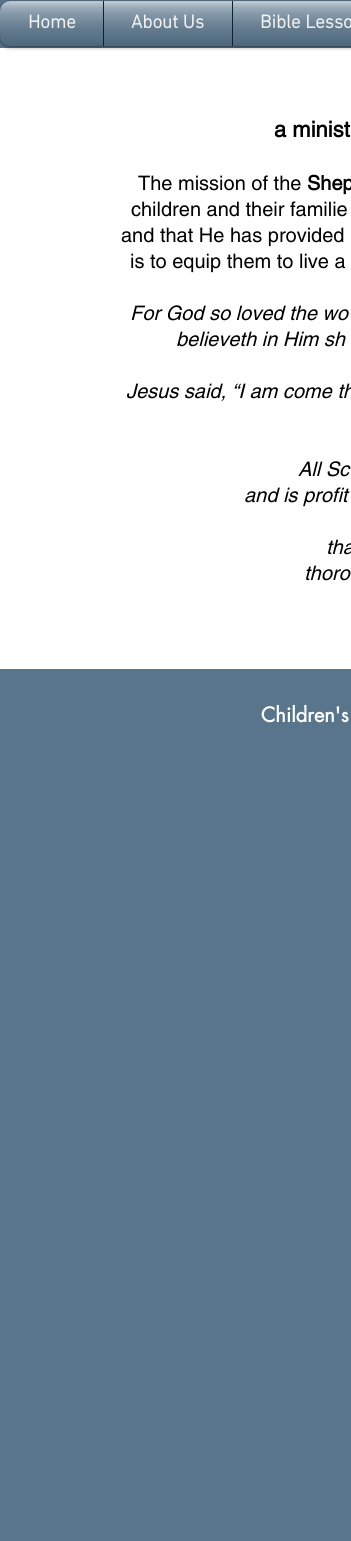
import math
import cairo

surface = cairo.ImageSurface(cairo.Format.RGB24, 351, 1541)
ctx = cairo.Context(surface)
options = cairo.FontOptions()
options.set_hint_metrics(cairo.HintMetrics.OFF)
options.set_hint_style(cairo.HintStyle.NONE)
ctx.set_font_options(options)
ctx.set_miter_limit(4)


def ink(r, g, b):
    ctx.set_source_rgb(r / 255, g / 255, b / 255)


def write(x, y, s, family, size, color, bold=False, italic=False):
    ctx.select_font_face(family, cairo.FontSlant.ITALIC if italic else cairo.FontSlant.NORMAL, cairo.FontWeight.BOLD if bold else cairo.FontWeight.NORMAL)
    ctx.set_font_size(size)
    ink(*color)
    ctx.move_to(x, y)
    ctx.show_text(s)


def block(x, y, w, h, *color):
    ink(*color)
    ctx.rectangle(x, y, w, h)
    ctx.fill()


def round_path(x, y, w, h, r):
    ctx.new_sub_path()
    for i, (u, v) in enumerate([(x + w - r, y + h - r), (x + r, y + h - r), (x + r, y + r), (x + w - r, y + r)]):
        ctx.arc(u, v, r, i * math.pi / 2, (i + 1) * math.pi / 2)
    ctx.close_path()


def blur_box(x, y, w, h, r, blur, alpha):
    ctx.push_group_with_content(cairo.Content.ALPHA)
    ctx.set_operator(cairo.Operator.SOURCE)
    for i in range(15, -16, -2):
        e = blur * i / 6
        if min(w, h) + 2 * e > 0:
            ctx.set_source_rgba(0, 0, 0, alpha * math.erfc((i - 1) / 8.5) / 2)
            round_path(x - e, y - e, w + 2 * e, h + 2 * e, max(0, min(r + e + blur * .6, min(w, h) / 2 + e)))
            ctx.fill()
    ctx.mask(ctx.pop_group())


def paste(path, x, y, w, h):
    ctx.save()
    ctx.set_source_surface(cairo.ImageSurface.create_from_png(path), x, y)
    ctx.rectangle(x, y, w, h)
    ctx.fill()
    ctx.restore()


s1 = dict(family="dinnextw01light", size=19, color=(255, 255, 255), bold=True)
s2 = dict(family="helvetica", size=22, color=(0, 0, 0), bold=True)
s3 = dict(family="helvetica", size=20, color=(0, 0, 0))
s4 = dict(family="helvetica", size=20, color=(0, 0, 0), bold=True)
s5 = dict(family="helvetica", size=20, color=(0, 0, 0), italic=True)
s6 = dict(family="futura", size=20, color=(255, 255, 255), bold=True)

ink(88, 117, 140)
ctx.paint()
block(0, 48, 351, 621, 255, 255, 255)
ink(0, 0, 0)
blur_box(0, 2, 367, 45, 10, 2, 0.6)
paste("pic1.png", 0, 1, 10, 45)
paste("pic2.png", 0, 36, 10, 10)
ink(88, 117, 140)
ctx.new_path()
ctx.move_to(10, 1)
ctx.line_to(103, 1)
ctx.line_to(103, 46)
ctx.line_to(10, 46)
ctx.curve_to(4.5, 46, 0, 41.5, 0, 36)
ctx.line_to(0, 11)
ctx.curve_to(0, 5.5, 4.5, 1, 10, 1)
ctx.close_path()
ctx.fill()
write(28, 28, "Home", **s1)
paste("pic3.png", 0, 1, 103, 45)
paste("pic4.png", 0, 12, 103, 34)
block(104, 1, 128, 45, 88, 117, 140)
block(103, 1, 1, 45, 13, 33, 48)
write(131, 28, "About Us", **s1)
paste("pic5.png", 104, 1, 128, 45)
paste("pic6.png", 104, 12, 128, 34)
block(233, 1, 118, 45, 88, 117, 140)
block(232, 1, 1, 45, 13, 33, 48)
write(260, 28, "Bible Lesso", **s1)
paste("pic7.png", 233, 1, 118, 45)
paste("pic8.png", 233, 12, 118, 34)
write(274, 137, "a minist", **s2)
write(138, 190, "The mission of the", **s3)
write(307, 190, "Shep", **s4)
write(131, 216, "children and their familie", **s3)
write(121, 242, "and that He has provided", **s3)
write(130, 268, "is to equip them to live a", **s3)
write(130, 320, "For God so loved the wo", **s5)
write(176, 346, "believeth in Him sh", **s5)
write(126, 398, "Jesus said, “I am come th", **s5)
write(298, 476, "All Sc", **s5)
write(244, 502, "and is profit", **s5)
write(326, 554, "tha", **s5)
write(304, 580, "thoro", **s5)
write(261, 722, "Children's", **s6)
surface.write_to_png("screenshot.png")
